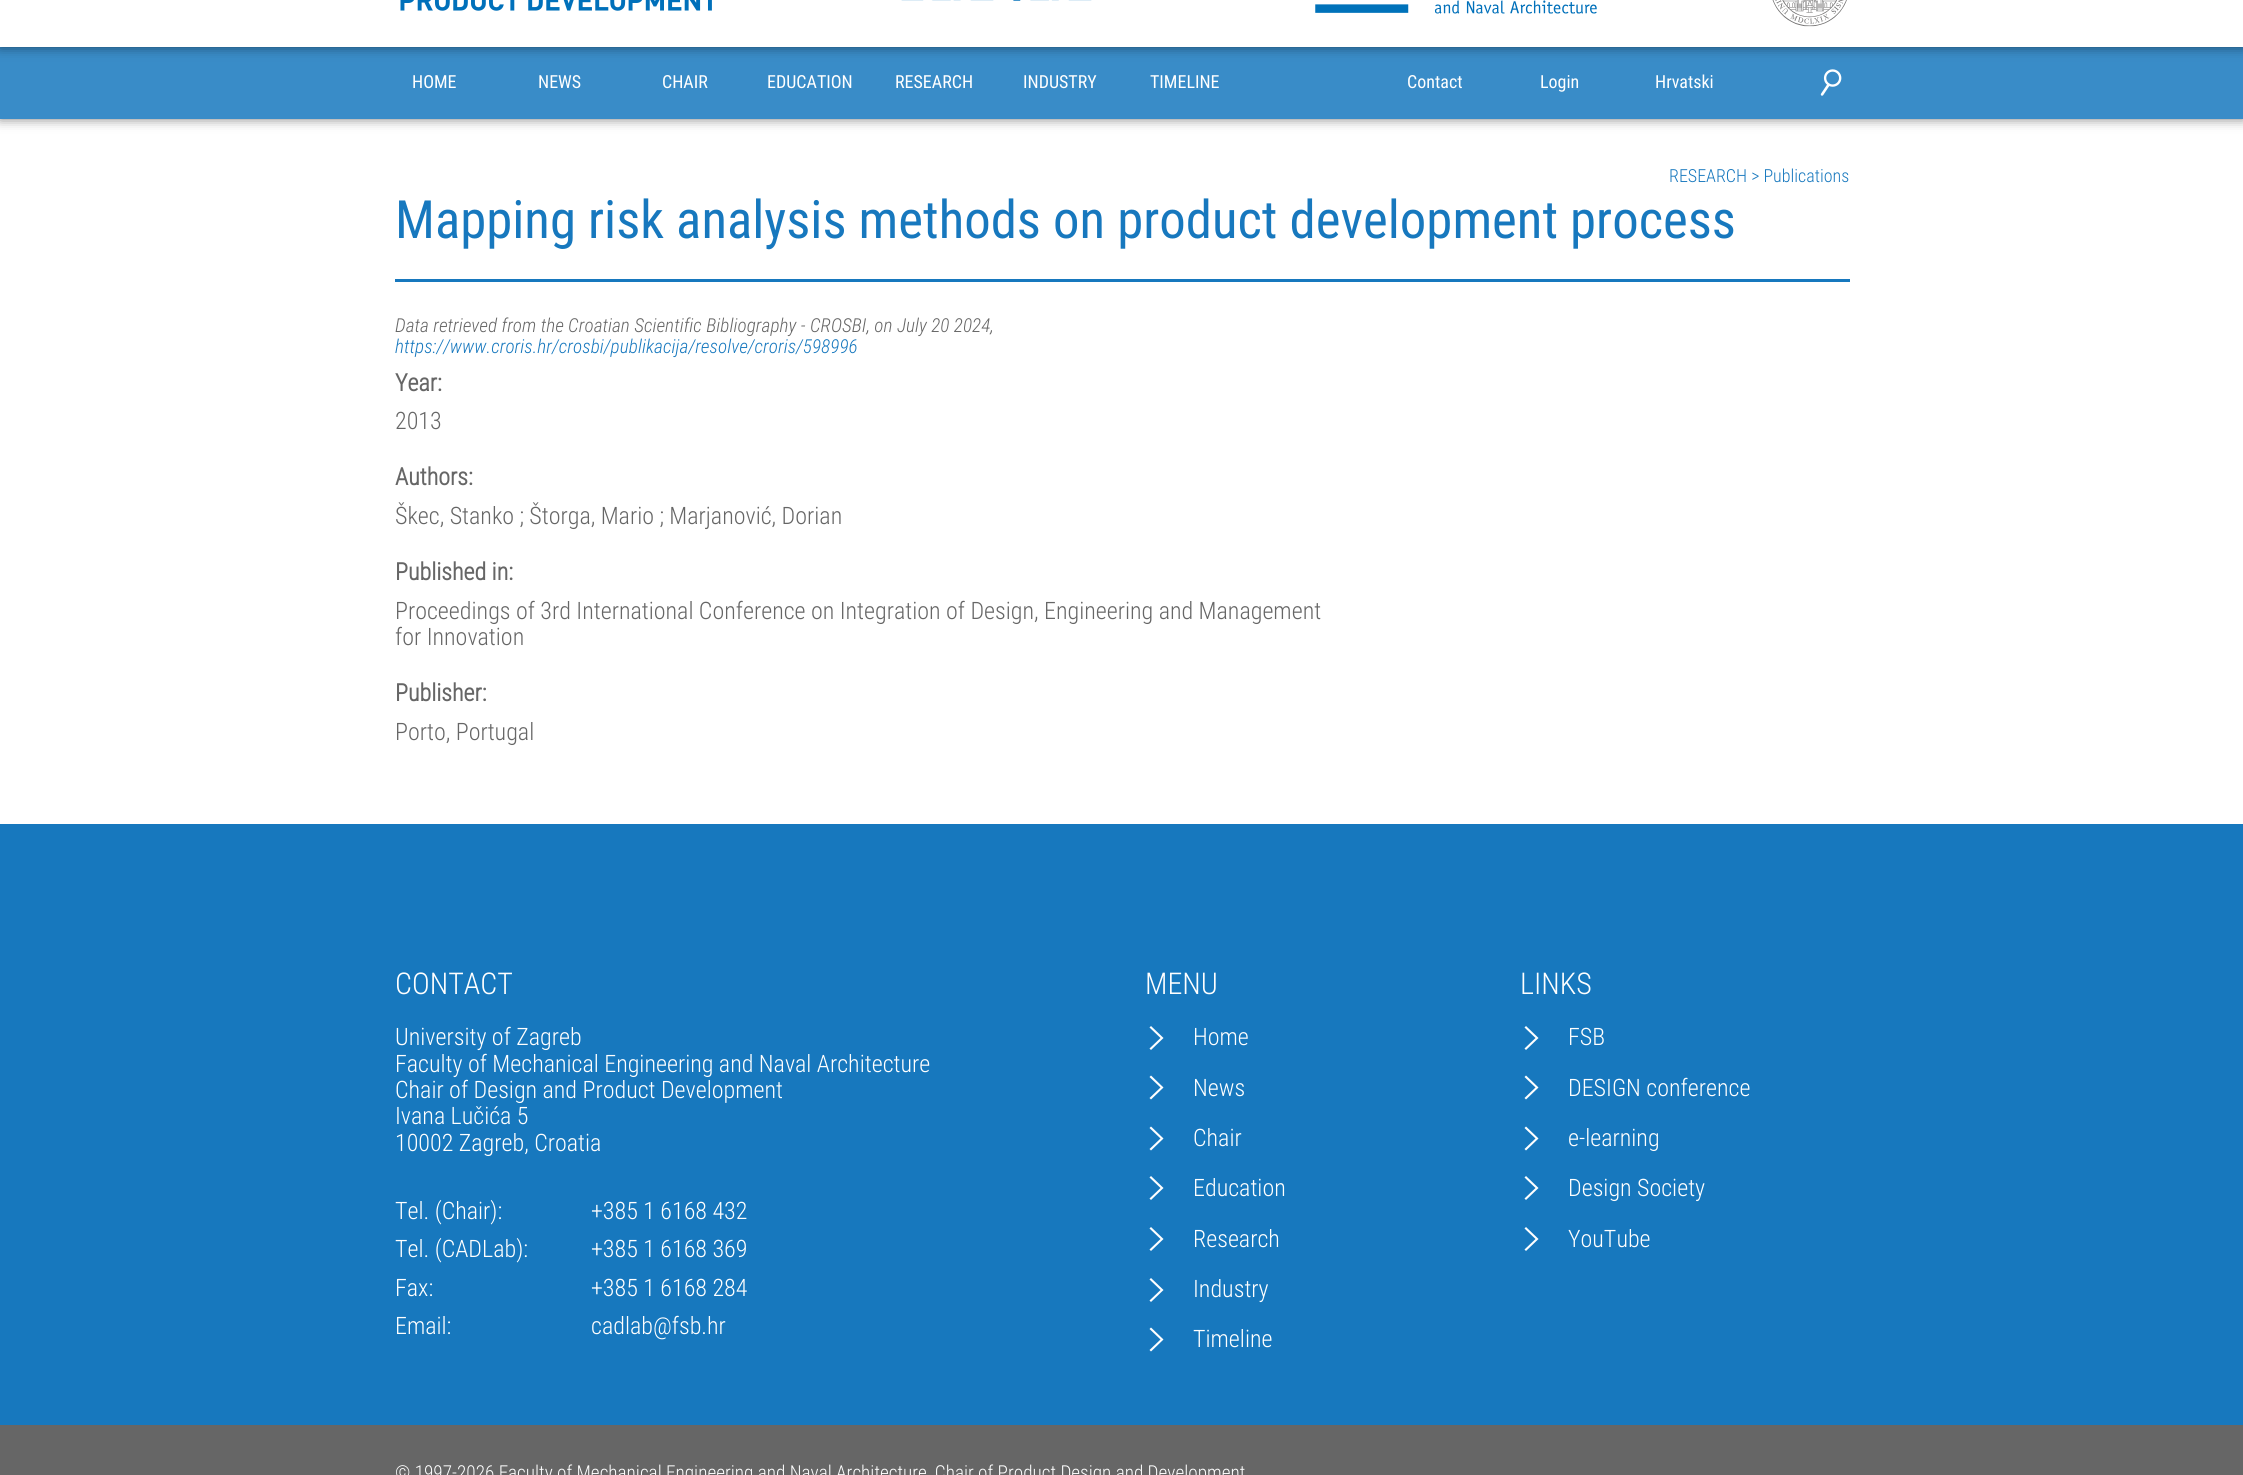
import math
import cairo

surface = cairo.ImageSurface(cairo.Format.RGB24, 2243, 1475)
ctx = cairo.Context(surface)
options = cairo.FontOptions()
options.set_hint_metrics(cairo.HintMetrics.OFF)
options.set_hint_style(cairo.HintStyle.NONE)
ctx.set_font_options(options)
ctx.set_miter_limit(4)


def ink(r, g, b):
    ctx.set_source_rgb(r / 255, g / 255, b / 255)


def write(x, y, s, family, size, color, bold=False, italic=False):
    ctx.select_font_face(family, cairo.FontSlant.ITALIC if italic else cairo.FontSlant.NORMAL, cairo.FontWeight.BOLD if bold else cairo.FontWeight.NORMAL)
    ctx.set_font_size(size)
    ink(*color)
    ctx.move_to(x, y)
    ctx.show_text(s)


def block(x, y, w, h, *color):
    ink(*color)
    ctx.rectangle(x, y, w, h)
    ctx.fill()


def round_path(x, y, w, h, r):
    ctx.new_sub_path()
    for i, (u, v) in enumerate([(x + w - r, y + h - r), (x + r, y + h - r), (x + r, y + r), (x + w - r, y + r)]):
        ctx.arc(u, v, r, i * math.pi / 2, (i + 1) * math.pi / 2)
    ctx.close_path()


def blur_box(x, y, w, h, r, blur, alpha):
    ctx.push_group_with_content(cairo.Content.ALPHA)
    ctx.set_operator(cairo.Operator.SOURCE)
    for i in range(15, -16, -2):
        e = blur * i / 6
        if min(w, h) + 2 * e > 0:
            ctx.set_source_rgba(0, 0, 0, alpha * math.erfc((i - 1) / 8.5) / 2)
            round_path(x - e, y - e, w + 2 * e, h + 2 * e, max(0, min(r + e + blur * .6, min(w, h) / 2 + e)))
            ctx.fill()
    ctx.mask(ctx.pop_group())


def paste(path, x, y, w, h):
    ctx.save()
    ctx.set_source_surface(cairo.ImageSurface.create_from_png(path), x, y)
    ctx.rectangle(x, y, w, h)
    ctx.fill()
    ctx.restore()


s1 = dict(family="Roboto Condensed", size=18, color=(255, 255, 255))
s2 = dict(family="Roboto Condensed Light", size=18, color=(23, 120, 190))
s3 = dict(family="Roboto Condensed", size=52.8, color=(23, 120, 190))
s4 = dict(family="Roboto Condensed Light", size=19.2, color=(102, 102, 102), italic=True)
s5 = dict(family="Roboto Condensed Light", size=19.2, color=(23, 120, 190), italic=True)
s6 = dict(family="Roboto Condensed", size=24, color=(102, 102, 102), bold=True)
s7 = dict(family="Roboto Condensed Light", size=24, color=(102, 102, 102))
s8 = dict(family="Roboto Condensed Light", size=30, color=(255, 255, 255))
s9 = dict(family="Roboto Condensed Light", size=24, color=(255, 255, 255))
s10 = dict(family="Roboto Condensed Light", size=19.2, color=(255, 255, 255))

ink(255, 255, 255)
ctx.paint()
ctx.save()
ctx.set_fill_rule(cairo.FillRule.EVEN_ODD)
ctx.new_path()
ctx.move_to(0, 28)
ctx.line_to(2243, 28)
ctx.line_to(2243, 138)
ctx.line_to(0, 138)
ctx.close_path()
ctx.move_to(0, 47)
ctx.line_to(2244, 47)
ctx.line_to(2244, 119)
ctx.line_to(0, 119)
ctx.close_path()
ctx.clip()
ink(0, 0, 0)
blur_box(0, 47, 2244, 72, 0, 6, 0.5)
ctx.restore()
ctx.set_source_rgba(0.09, 0.471, 0.745, 0.85)
ctx.rectangle(0, 47, 2243, 72)
ctx.fill()
ink(0, 0, 0)
blur_box(0, -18, 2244, 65, 0, 6, 0.5)
block(0, 0, 2243, 47, 255, 255, 255)
paste("pic1.png", 400, 0, 312, 11)
paste("pic2.png", 901, 0, 191, 1)
paste("pic3.png", 1315, 0, 282, 14)
paste("pic4.png", 1772, 0, 75, 27)
write(412, 88, "HOME", **s1)
write(538, 88, "NEWS", **s1)
write(662, 88, "CHAIR", **s1)
write(767, 88, "EDUCATION", **s1)
write(895, 88, "RESEARCH", **s1)
write(1023, 88, "INDUSTRY", **s1)
write(1150, 88, "TIMELINE", **s1)
write(1407, 88, "Contact", **s1)
write(1540, 88, "Login", **s1)
write(1655, 88, "Hrvatski", **s1)
paste("pic5.png", 1820, 69, 22, 27)
write(1669, 182, "RESEARCH > Publications", **s2)
write(395, 238, "Mapping risk analysis methods on product development process", **s3)
block(395, 279, 1455, 3, 23, 120, 190)
write(395, 332, "Data retrieved from the Croatian Scientific Bibliography - CROSBI, on July 20 2024,", **s4)
write(395, 353, "https://www.croris.hr/crosbi/publikacija/resolve/croris/598996", **s5)
write(395, 391, "Year:", **s6)
write(395, 429, "2013", **s7)
write(395, 485, "Authors:", **s6)
write(395, 524, "Škec, Stanko ; Štorga, Mario ; Marjanović, Dorian", **s7)
write(395, 580, "Published in:", **s6)
write(395, 619, "Proceedings of 3rd International Conference on Integration of Design, Engineering and Management", **s7)
write(395, 645, "for Innovation", **s7)
write(395, 701, "Publisher:", **s6)
write(395, 740, "Porto, Portugal", **s7)
block(0, 824, 2243, 601, 23, 120, 190)
write(395, 994, "CONTACT", **s8)
write(395, 1045, "University of Zagreb", **s9)
write(395, 1072, "Faculty of Mechanical Engineering and Naval Architecture", **s9)
write(395, 1098, "Chair of Design and Product Development", **s9)
write(395, 1124, "Ivana Lučića 5", **s9)
write(395, 1151, "10002 Zagreb, Croatia", **s9)
write(395, 1219, "Tel. (Chair):", **s9)
write(591, 1219, "+385 1 6168 432", **s9)
write(395, 1257, "Tel. (CADLab):", **s9)
write(591, 1257, "+385 1 6168 369", **s9)
write(395, 1296, "Fax:", **s9)
write(591, 1296, "+385 1 6168 284", **s9)
write(395, 1334, "Email:", **s9)
write(591, 1334, "cadlab@fsb.hr", **s9)
write(1145, 994, "MENU", **s8)
ctx.new_path()
ctx.move_to(1149.5, 1027.5)
ctx.line_to(1151, 1026)
ctx.line_to(1163.5, 1038)
ctx.line_to(1151, 1050)
ctx.line_to(1149.5, 1048.5)
ctx.line_to(1160.5, 1038)
ctx.close_path()
ctx.fill()
write(1193, 1045, "Home", **s9)
ctx.new_path()
ctx.move_to(1149.5, 1077)
ctx.line_to(1151, 1075.5)
ctx.line_to(1163.5, 1087.5)
ctx.line_to(1151, 1099.5)
ctx.line_to(1149.5, 1098)
ctx.line_to(1160.5, 1087.5)
ctx.close_path()
ctx.fill()
write(1193, 1096, "News", **s9)
ctx.new_path()
ctx.move_to(1149.5, 1128)
ctx.line_to(1151, 1126.5)
ctx.line_to(1163.5, 1138.5)
ctx.line_to(1151, 1150.5)
ctx.line_to(1149.5, 1149)
ctx.line_to(1160.5, 1138.5)
ctx.close_path()
ctx.fill()
write(1193, 1146, "Chair", **s9)
ctx.new_path()
ctx.move_to(1149.5, 1177.5)
ctx.line_to(1151, 1176)
ctx.line_to(1163.5, 1188)
ctx.line_to(1151, 1200)
ctx.line_to(1149.5, 1198.5)
ctx.line_to(1160.5, 1188)
ctx.close_path()
ctx.fill()
write(1193, 1196, "Education", **s9)
ctx.new_path()
ctx.move_to(1149.5, 1228.5)
ctx.line_to(1151, 1227)
ctx.line_to(1163.5, 1239)
ctx.line_to(1151, 1251)
ctx.line_to(1149.5, 1249.5)
ctx.line_to(1160.5, 1239)
ctx.close_path()
ctx.fill()
write(1193, 1247, "Research", **s9)
ctx.new_path()
ctx.move_to(1149.5, 1279.5)
ctx.line_to(1151, 1278)
ctx.line_to(1163.5, 1290)
ctx.line_to(1151, 1302)
ctx.line_to(1149.5, 1300.5)
ctx.line_to(1160.5, 1290)
ctx.close_path()
ctx.fill()
write(1193, 1297, "Industry", **s9)
ctx.new_path()
ctx.move_to(1149.5, 1329)
ctx.line_to(1151, 1327.5)
ctx.line_to(1163.5, 1339.5)
ctx.line_to(1151, 1351.5)
ctx.line_to(1149.5, 1350)
ctx.line_to(1160.5, 1339.5)
ctx.close_path()
ctx.fill()
write(1193, 1347, "Timeline", **s9)
write(1520, 994, "LINKS", **s8)
ctx.new_path()
ctx.move_to(1524.5, 1027.5)
ctx.line_to(1526, 1026)
ctx.line_to(1538.5, 1038)
ctx.line_to(1526, 1050)
ctx.line_to(1524.5, 1048.5)
ctx.line_to(1535.5, 1038)
ctx.close_path()
ctx.fill()
write(1568, 1045, "FSB", **s9)
ctx.new_path()
ctx.move_to(1524.5, 1077)
ctx.line_to(1526, 1075.5)
ctx.line_to(1538.5, 1087.5)
ctx.line_to(1526, 1099.5)
ctx.line_to(1524.5, 1098)
ctx.line_to(1535.5, 1087.5)
ctx.close_path()
ctx.fill()
write(1568, 1096, "DESIGN conference", **s9)
ctx.new_path()
ctx.move_to(1524.5, 1128)
ctx.line_to(1526, 1126.5)
ctx.line_to(1538.5, 1138.5)
ctx.line_to(1526, 1150.5)
ctx.line_to(1524.5, 1149)
ctx.line_to(1535.5, 1138.5)
ctx.close_path()
ctx.fill()
write(1568, 1146, "e-learning", **s9)
ctx.new_path()
ctx.move_to(1524.5, 1177.5)
ctx.line_to(1526, 1176)
ctx.line_to(1538.5, 1188)
ctx.line_to(1526, 1200)
ctx.line_to(1524.5, 1198.5)
ctx.line_to(1535.5, 1188)
ctx.close_path()
ctx.fill()
write(1568, 1196, "Design Society", **s9)
ctx.new_path()
ctx.move_to(1524.5, 1228.5)
ctx.line_to(1526, 1227)
ctx.line_to(1538.5, 1239)
ctx.line_to(1526, 1251)
ctx.line_to(1524.5, 1249.5)
ctx.line_to(1535.5, 1239)
ctx.close_path()
ctx.fill()
write(1568, 1247, "YouTube", **s9)
block(0, 1425, 2243, 50, 102, 102, 102)
write(395, 1479, "© 1997-2026 Faculty of Mechanical Engineering and Naval Architecture, Chair of Product Design and Development", **s10)
surface.write_to_png("screenshot.png")
